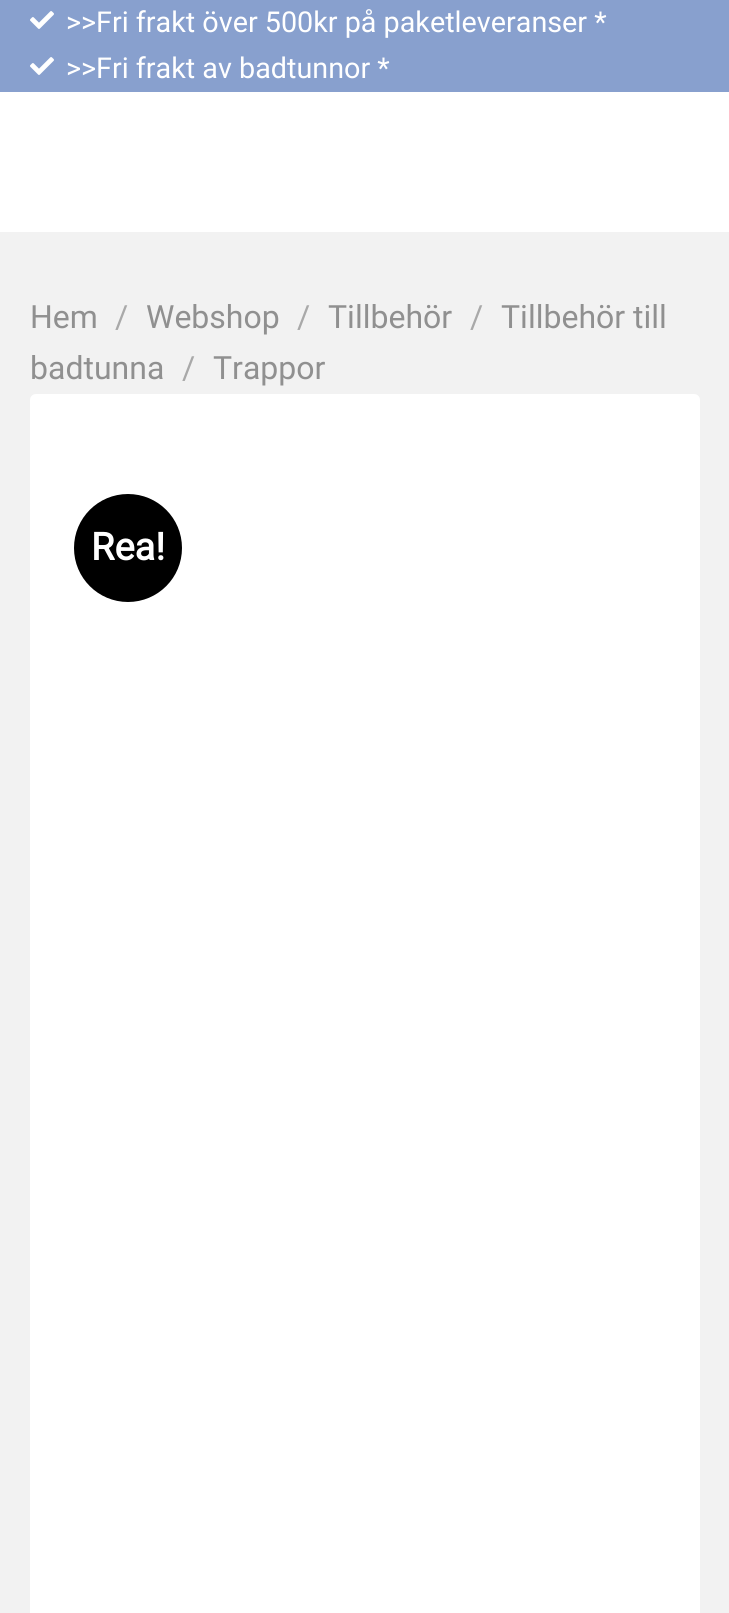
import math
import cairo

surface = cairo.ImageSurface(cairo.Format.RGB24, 729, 1613)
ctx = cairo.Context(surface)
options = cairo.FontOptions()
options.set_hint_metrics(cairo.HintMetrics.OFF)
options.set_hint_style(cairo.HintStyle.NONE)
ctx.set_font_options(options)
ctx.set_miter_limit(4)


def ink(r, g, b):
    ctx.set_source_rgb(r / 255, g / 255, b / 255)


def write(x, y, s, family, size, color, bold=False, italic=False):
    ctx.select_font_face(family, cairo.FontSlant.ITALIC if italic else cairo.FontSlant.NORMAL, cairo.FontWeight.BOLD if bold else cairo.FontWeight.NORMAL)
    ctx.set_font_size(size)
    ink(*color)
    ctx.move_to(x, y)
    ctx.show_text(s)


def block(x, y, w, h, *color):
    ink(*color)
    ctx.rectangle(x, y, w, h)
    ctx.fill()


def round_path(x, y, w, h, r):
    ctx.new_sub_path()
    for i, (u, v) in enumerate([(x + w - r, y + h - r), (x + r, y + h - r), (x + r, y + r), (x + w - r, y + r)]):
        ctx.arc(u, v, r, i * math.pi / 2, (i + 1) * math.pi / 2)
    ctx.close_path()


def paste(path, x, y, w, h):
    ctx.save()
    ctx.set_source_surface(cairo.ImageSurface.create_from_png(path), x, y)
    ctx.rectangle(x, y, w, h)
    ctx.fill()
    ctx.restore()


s1 = dict(family="Roboto", size=28.75, color=(255, 255, 255))
s2 = dict(family="Roboto", size=32, color=(144, 144, 144))
s3 = dict(family="Roboto", size=32, color=(169, 169, 169))
s4 = dict(family="Roboto", size=38, color=(255, 255, 255), bold=True)

ink(242, 242, 242)
ctx.paint()
block(0, 0, 729, 92, 136, 160, 206)
paste("pic1.png", 30, 11, 24, 18)
write(66, 32, ">>Fri frakt över 500kr på paketleveranser *", **s1)
paste("pic1.png", 30, 57, 24, 18)
write(66, 78, ">>Fri frakt av badtunnor *", **s1)
block(0, 92, 729, 140, 255, 255, 255)
write(30, 328, "Hem", **s2)
write(115, 328, "/", **s3)
write(146, 328, "Webshop", **s2)
write(297, 328, "/", **s3)
write(328, 328, "Tillbehör", **s2)
write(470, 328, "/", **s3)
write(501, 328, "Tillbehör till", **s2)
write(30, 379, "badtunna", **s2)
write(182, 379, "/", **s3)
write(213, 379, "Trappor", **s2)
ink(255, 255, 255)
round_path(30, 394, 670, 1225, 6)
ctx.fill()
ink(0, 0, 0)
ctx.arc(128, 548, 54, 0, 2 * math.pi)
ctx.fill()
write(91, 560, "Rea!", **s4)
surface.write_to_png("screenshot.png")
